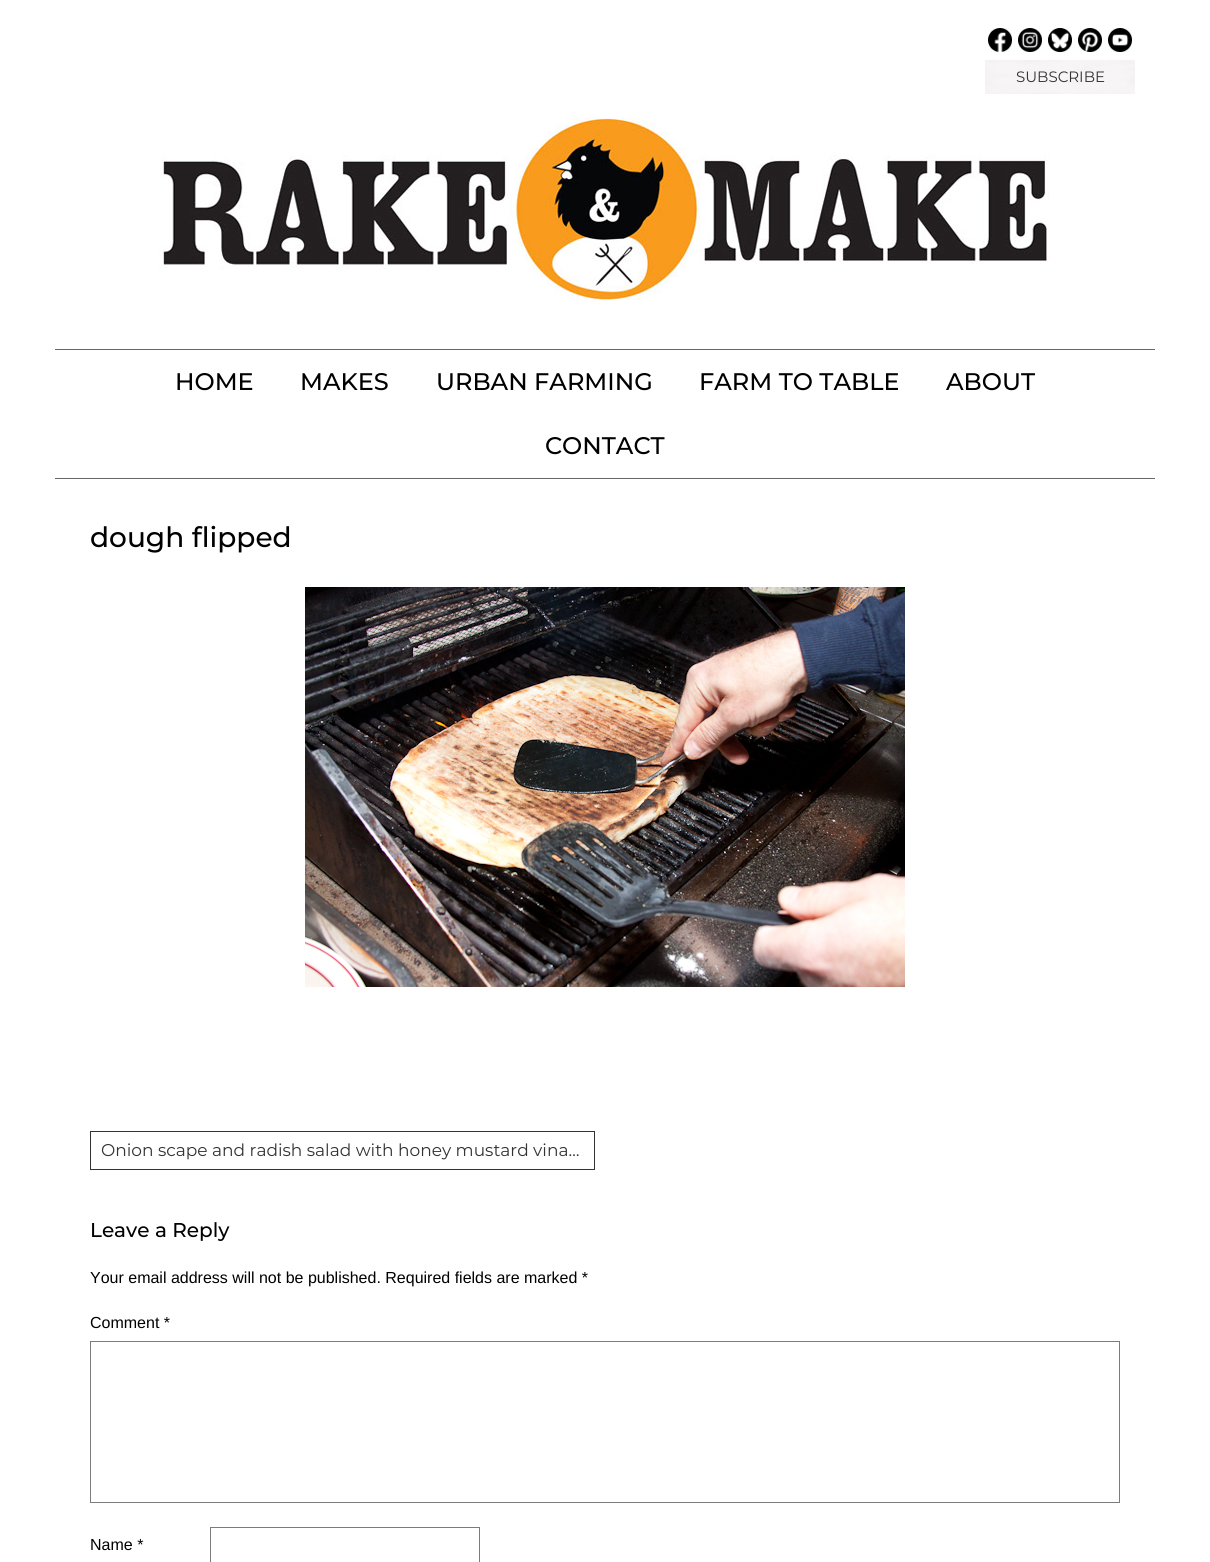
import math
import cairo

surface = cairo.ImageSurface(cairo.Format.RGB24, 1210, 1562)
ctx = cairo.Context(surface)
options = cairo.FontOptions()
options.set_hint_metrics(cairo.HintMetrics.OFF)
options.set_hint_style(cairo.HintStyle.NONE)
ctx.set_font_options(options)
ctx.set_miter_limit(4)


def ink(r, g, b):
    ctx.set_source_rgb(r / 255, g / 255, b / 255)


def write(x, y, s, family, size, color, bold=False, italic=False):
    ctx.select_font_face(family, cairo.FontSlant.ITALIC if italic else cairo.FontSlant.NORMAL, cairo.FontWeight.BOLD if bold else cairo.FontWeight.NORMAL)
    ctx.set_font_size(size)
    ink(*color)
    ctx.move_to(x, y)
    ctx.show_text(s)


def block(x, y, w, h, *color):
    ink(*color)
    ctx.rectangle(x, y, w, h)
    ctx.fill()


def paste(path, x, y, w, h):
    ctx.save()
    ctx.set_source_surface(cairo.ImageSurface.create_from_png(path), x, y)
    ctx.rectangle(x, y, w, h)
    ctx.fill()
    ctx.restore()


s1 = dict(family="Montserrat", size=15, color=(51, 51, 51))
s2 = dict(family="Montserrat Medium", size=24, color=(0, 0, 0))
s3 = dict(family="Montserrat Medium", size=28, color=(0, 0, 0))
s4 = dict(family="Montserrat", size=17, color=(51, 51, 51))
s5 = dict(family="Montserrat Medium", size=20, color=(0, 0, 0))
s6 = dict(family="Liberation Sans", size=16, color=(0, 0, 0))

ink(255, 255, 255)
ctx.paint()
paste("pic1.png", 988, 28, 24, 24)
paste("pic2.png", 1018, 28, 24, 24)
paste("pic3.png", 1048, 28, 24, 24)
paste("pic4.png", 1078, 28, 24, 24)
paste("pic5.png", 1108, 28, 24, 24)
paste("pic6.png", 985, 60, 150, 34)
write(1016, 82, "SUBSCRIBE", **s1)
paste("pic7.png", 159, 117, 891, 183)
block(55, 349, 1100, 1, 102, 102, 102)
block(55, 478, 1100, 1, 102, 102, 102)
write(175, 390, "HOME", **s2)
write(300, 390, "MAKES", **s2)
write(436, 390, "URBAN FARMING", **s2)
write(699, 390, "FARM TO TABLE", **s2)
write(946, 390, "ABOUT", **s2)
write(545, 454, "CONTACT", **s2)
write(90, 547, "dough flipped", **s3)
paste("pic8.png", 305, 587, 600, 400)
ctx.rectangle(90.5, 1131.5, 504, 38)
ink(51, 51, 51)
ctx.set_line_width(1)
ctx.stroke()
write(101, 1156, "Onion scape and radish salad with honey mustard vina…", **s4)
write(90, 1237, "Leave a Reply", **s5)
write(90, 1283, "Your email address will not be published. Required fields are marked *", **s6)
write(90, 1328, "Comment *", **s6)
ctx.rectangle(90.5, 1341.5, 1029, 161)
ink(124, 124, 124)
ctx.stroke()
write(90, 1550, "Name *", **s6)
ctx.rectangle(210.5, 1527.5, 269, 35)
ink(124, 124, 124)
ctx.stroke()
surface.write_to_png("screenshot.png")
